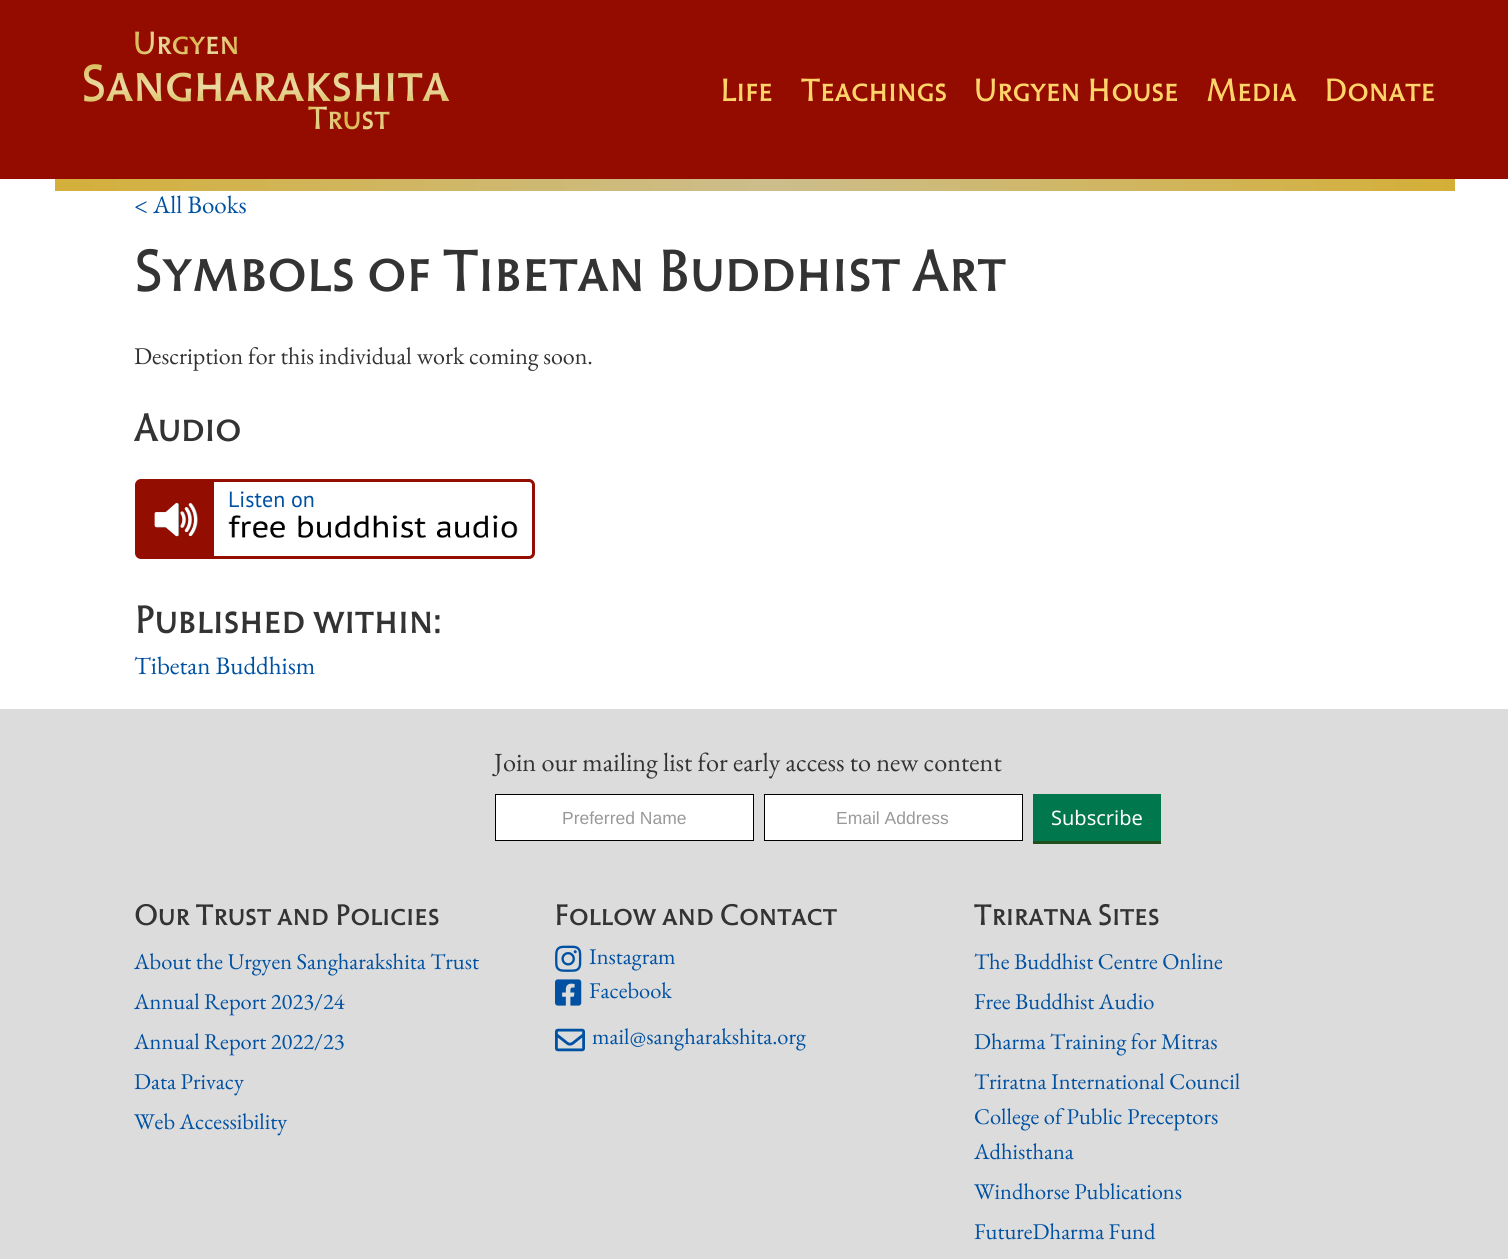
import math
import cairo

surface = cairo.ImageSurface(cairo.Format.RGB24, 1508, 1259)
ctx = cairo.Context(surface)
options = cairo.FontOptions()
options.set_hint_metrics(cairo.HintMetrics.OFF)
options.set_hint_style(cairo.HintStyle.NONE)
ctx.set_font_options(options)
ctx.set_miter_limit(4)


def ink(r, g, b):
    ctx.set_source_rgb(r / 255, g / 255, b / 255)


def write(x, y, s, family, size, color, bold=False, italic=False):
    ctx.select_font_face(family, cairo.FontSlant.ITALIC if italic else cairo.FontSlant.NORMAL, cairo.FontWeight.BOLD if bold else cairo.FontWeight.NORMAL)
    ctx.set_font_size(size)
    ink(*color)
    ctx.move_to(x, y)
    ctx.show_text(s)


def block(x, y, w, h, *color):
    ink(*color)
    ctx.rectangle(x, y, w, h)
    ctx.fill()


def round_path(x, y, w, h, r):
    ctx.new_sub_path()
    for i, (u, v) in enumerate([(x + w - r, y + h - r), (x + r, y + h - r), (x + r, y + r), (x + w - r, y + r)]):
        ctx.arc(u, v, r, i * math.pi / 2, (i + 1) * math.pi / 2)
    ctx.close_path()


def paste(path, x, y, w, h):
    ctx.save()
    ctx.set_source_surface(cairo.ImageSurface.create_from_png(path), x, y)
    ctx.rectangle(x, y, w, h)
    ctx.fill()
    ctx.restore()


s1 = dict(family="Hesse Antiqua", size=32.5, color=(255, 213, 107))
s2 = dict(family="EB Garamond", size=25, color=(0, 81, 162))
s3 = dict(family="Hesse Antiqua", size=60, color=(51, 51, 51))
s4 = dict(family="EB Garamond", size=24, color=(51, 51, 51))
s5 = dict(family="Hesse Antiqua", size=40, color=(51, 51, 51))
s6 = dict(family="PT Sans", size=22, color=(0, 81, 162))
s7 = dict(family="EB Garamond", size=26.25, color=(51, 51, 51))
s8 = dict(family="Liberation Sans", size=17.5, color=(153, 153, 153))
s9 = dict(family="Noto Sans", size=20, color=(255, 255, 255))
s10 = dict(family="Hesse Antiqua", size=30, color=(51, 51, 51))
s11 = dict(family="EB Garamond", size=22.5, color=(0, 81, 162))

ink(255, 255, 255)
ctx.paint()
block(0, 0, 1508, 179, 148, 12, 0)
ctx.select_font_face("Hesse Antiqua")
ctx.set_font_size(32.5)
gradient = cairo.RadialGradient(187, 40, 0, 187, 40, 61)
gradient.add_color_stop_rgba(0, 0.831, 0.686, 0.216, 1)
gradient.add_color_stop_rgba(0.46, 0.922, 0.855, 0.639, 1)
gradient.add_color_stop_rgba(1, 0.831, 0.686, 0.216, 1)
ctx.set_source(gradient)
ctx.move_to(133, 54)
ctx.show_text("Urgyen")
ctx.set_font_size(52.5)
gradient = cairo.LinearGradient(265, 52, 265, 116)
gradient.add_color_stop_rgba(0, 0.831, 0.686, 0.216, 1)
gradient.add_color_stop_rgba(0.54, 0.922, 0.855, 0.639, 1)
gradient.add_color_stop_rgba(1, 0.831, 0.686, 0.216, 1)
ctx.set_source(gradient)
ctx.move_to(81, 101)
ctx.show_text("Sangharakshita")
ctx.set_font_size(32.5)
gradient = cairo.RadialGradient(349, 119, 0, 349, 119, 49)
gradient.add_color_stop_rgba(0, 0.831, 0.686, 0.216, 1)
gradient.add_color_stop_rgba(0.52, 0.918, 0.851, 0.624, 1)
gradient.add_color_stop_rgba(1, 0.831, 0.686, 0.216, 1)
ctx.set_source(gradient)
ctx.move_to(308, 129)
ctx.show_text("Trust")
write(720, 101, "Life", **s1)
write(801, 101, "Teachings", **s1)
write(974, 101, "Urgyen House", **s1)
write(1206, 101, "Media", **s1)
write(1324, 101, "Donate", **s1)
gradient = cairo.LinearGradient(1426, 42, 57, 333)
gradient.add_color_stop_rgba(0, 0.831, 0.686, 0.216, 1)
gradient.add_color_stop_rgba(0.48, 0.8, 0.741, 0.549, 1)
gradient.add_color_stop_rgba(1, 0.831, 0.686, 0.216, 1)
ctx.set_source(gradient)
ctx.rectangle(55, 179, 1400, 12)
ctx.fill()
write(134, 213, "< All Books", **s2)
write(134, 291, "Symbols of Tibetan Buddhist Art", **s3)
write(134, 364, "Description for this individual work coming soon.", **s4)
write(134, 441, "Audio", **s5)
round_path(136.5, 480.5, 397, 77, 4.5)
ink(147, 13, 0)
ctx.set_line_width(3)
ctx.stroke()
block(138, 482, 76, 74, 147, 13, 0)
paste("pic1.png", 154, 503, 44, 34)
write(228, 507, "Listen on", **s6)
paste("pic2.png", 228, 515, 290, 23)
write(134, 633, "Published within:", **s5)
write(134, 674, "Tibetan Buddhism", **s2)
block(0, 709, 1508, 550, 220, 220, 220)
write(494, 771, "Join our mailing list for early access to new content", **s7)
ink(255, 255, 255)
ctx.rectangle(495.5, 794.5, 258, 46)
ctx.fill_preserve()
ink(0, 0, 0)
ctx.set_line_width(1)
ctx.stroke()
write(562, 824, "Preferred Name", **s8)
ink(255, 255, 255)
ctx.rectangle(764.5, 794.5, 258, 46)
ctx.fill_preserve()
ink(0, 0, 0)
ctx.stroke()
write(836, 824, "Email Address", **s8)
block(1033, 794, 128, 47, 0, 119, 77)
block(1033, 841, 128, 3, 31, 80, 27)
write(1051, 825, "Subscribe", **s9)
write(134, 925, "Our Trust and Policies", **s10)
write(134, 969, "About the Urgyen Sangharakshita Trust", **s11)
write(134, 1009, "Annual Report 2023/24", **s11)
write(134, 1049, "Annual Report 2022/23", **s11)
write(134, 1089, "Data Privacy", **s11)
write(134, 1129, "Web Accessibility", **s11)
write(554, 925, "Follow and Contact", **s10)
paste("pic3.png", 555, 945, 27, 27)
write(589, 964, "Instagram", **s11)
paste("pic4.png", 555, 979, 27, 27)
write(589, 998, "Facebook", **s11)
paste("pic5.png", 555, 1028, 30, 24)
write(592, 1044, "mail@sangharakshita.org", **s11)
write(974, 925, "Triratna Sites", **s10)
write(974, 969, "The Buddhist Centre Online", **s11)
write(974, 1009, "Free Buddhist Audio", **s11)
write(974, 1049, "Dharma Training for Mitras", **s11)
write(974, 1089, "Triratna International Council", **s11)
write(974, 1124, "College of Public Preceptors", **s11)
write(974, 1159, "Adhisthana", **s11)
write(974, 1199, "Windhorse Publications", **s11)
write(974, 1239, "FutureDharma Fund", **s11)
surface.write_to_png("screenshot.png")
